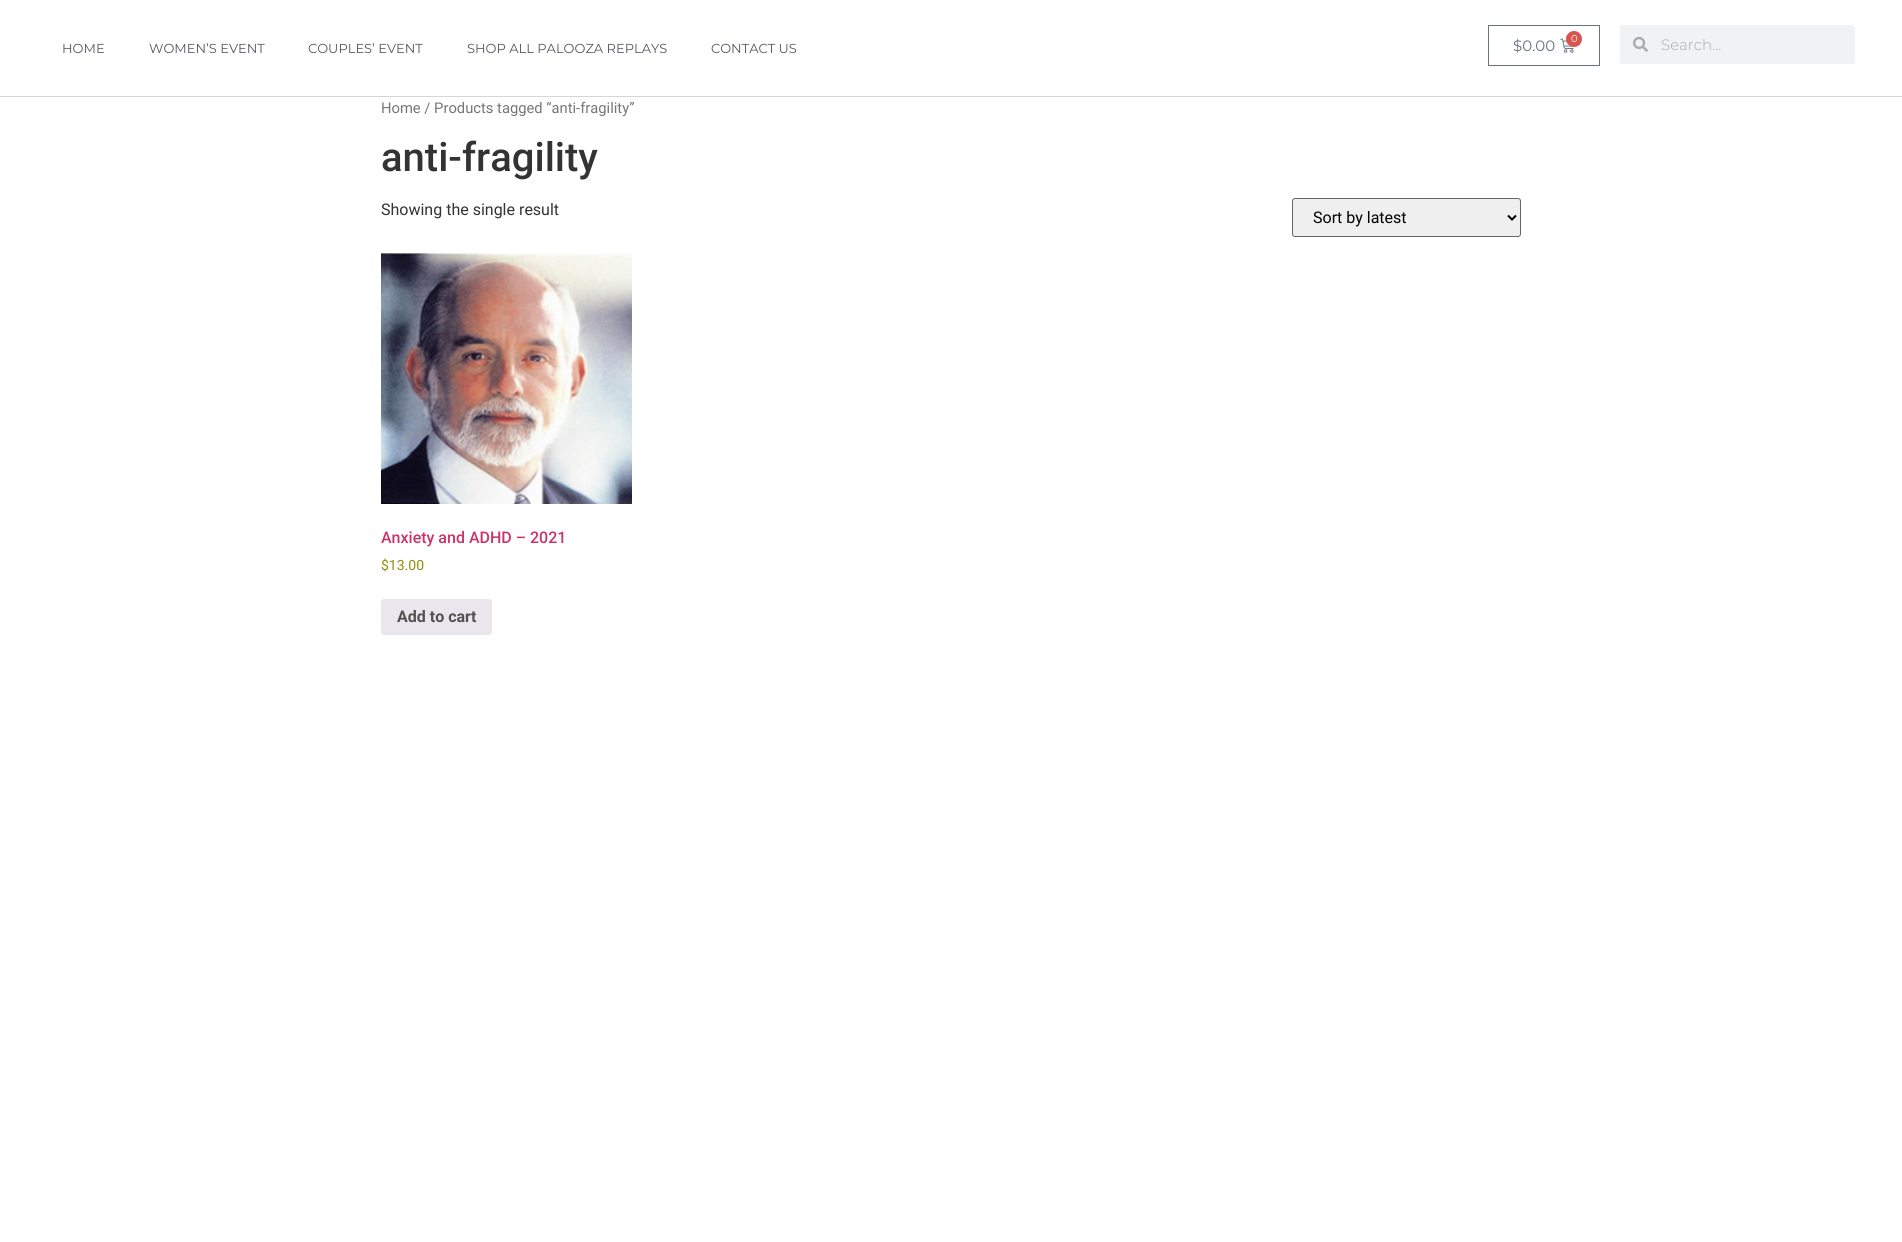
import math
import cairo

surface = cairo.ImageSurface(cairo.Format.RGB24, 1902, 1242)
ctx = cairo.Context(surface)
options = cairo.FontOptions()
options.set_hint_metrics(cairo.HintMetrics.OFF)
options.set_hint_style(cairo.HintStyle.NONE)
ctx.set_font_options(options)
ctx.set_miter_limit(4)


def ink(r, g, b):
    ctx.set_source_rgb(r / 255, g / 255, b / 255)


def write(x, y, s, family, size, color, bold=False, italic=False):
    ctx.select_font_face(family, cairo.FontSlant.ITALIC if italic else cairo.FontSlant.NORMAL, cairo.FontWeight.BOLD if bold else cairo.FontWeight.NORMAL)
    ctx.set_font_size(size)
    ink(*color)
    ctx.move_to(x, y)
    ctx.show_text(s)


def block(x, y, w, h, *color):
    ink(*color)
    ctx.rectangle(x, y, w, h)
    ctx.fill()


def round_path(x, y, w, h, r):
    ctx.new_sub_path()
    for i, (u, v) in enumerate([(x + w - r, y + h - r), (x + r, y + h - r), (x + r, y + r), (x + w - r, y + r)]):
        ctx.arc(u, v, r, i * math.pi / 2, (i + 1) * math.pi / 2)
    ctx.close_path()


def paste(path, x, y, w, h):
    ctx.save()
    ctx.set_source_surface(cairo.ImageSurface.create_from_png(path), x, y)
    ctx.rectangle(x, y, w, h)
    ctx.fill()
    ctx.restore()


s1 = dict(family="Montserrat", size=13, color=(84, 89, 95))
s2 = dict(family="Montserrat", size=15, color=(105, 114, 125))
s3 = dict(family="Montserrat", size=10, color=(255, 255, 255))
s4 = dict(family="Montserrat Light", size=15, color=(170, 170, 170))
s5 = dict(family="Roboto", size=14.75, color=(118, 118, 118))
s6 = dict(family="Roboto Medium", size=40, color=(51, 51, 51))
s7 = dict(family="Roboto", size=16, color=(51, 51, 51))
s8 = dict(family="Roboto", size=16, color=(0, 0, 0))
s9 = dict(family="Roboto Medium", size=16, color=(204, 51, 102))
s10 = dict(family="Roboto", size=14, color=(149, 142, 9))
s11 = dict(family="Roboto", size=16, color=(81, 81, 81), bold=True)

ink(255, 255, 255)
ctx.paint()
block(0, 96, 1902, 1, 214, 214, 214)
write(62, 53, "HOME", **s1)
write(149, 53, "WOMEN’S EVENT", **s1)
write(308, 53, "COUPLES’ EVENT", **s1)
write(467, 53, "SHOP ALL PALOOZA REPLAYS", **s1)
write(711, 53, "CONTACT US", **s1)
ctx.rectangle(1488.5, 25.5, 111, 40)
ink(105, 114, 125)
ctx.set_line_width(1)
ctx.stroke()
write(1513, 51, "$0.00", **s2)
paste("pic1.png", 1560, 38, 14, 15)
ink(217, 83, 79)
ctx.arc(1574, 39, 8, 0, 2 * math.pi)
ctx.fill()
write(1571, 42, "0", **s3)
ink(241, 242, 243)
round_path(1620, 25, 235, 39, 3)
ctx.fill()
paste("pic2.png", 1633, 36, 15, 16)
write(1661, 50, "Search...", **s4)
write(381, 113, "Home / Products tagged “anti-fragility”", **s5)
write(381, 171, "anti-fragility", **s6)
write(381, 215, "Showing the single result", **s7)
ink(239, 239, 239)
round_path(1292.5, 198.5, 228, 38, 2.5)
ctx.fill_preserve()
ink(102, 102, 102)
ctx.stroke()
ctx.new_path()
ctx.move_to(1508, 215.5)
ctx.line_to(1512, 219.5)
ctx.line_to(1516, 215.5)
ink(0, 0, 0)
ctx.set_line_width(2)
ctx.stroke()
write(1313, 223, "Sort by latest", **s8)
paste("pic3.png", 381, 253, 251, 251)
write(381, 543, "Anxiety and ADHD – 2021", **s9)
write(381, 570, "$13.00", **s10)
ink(233, 230, 237)
round_path(381, 599, 111, 36, 3)
ctx.fill()
write(397, 622, "Add to cart", **s11)
surface.write_to_png("screenshot.png")
